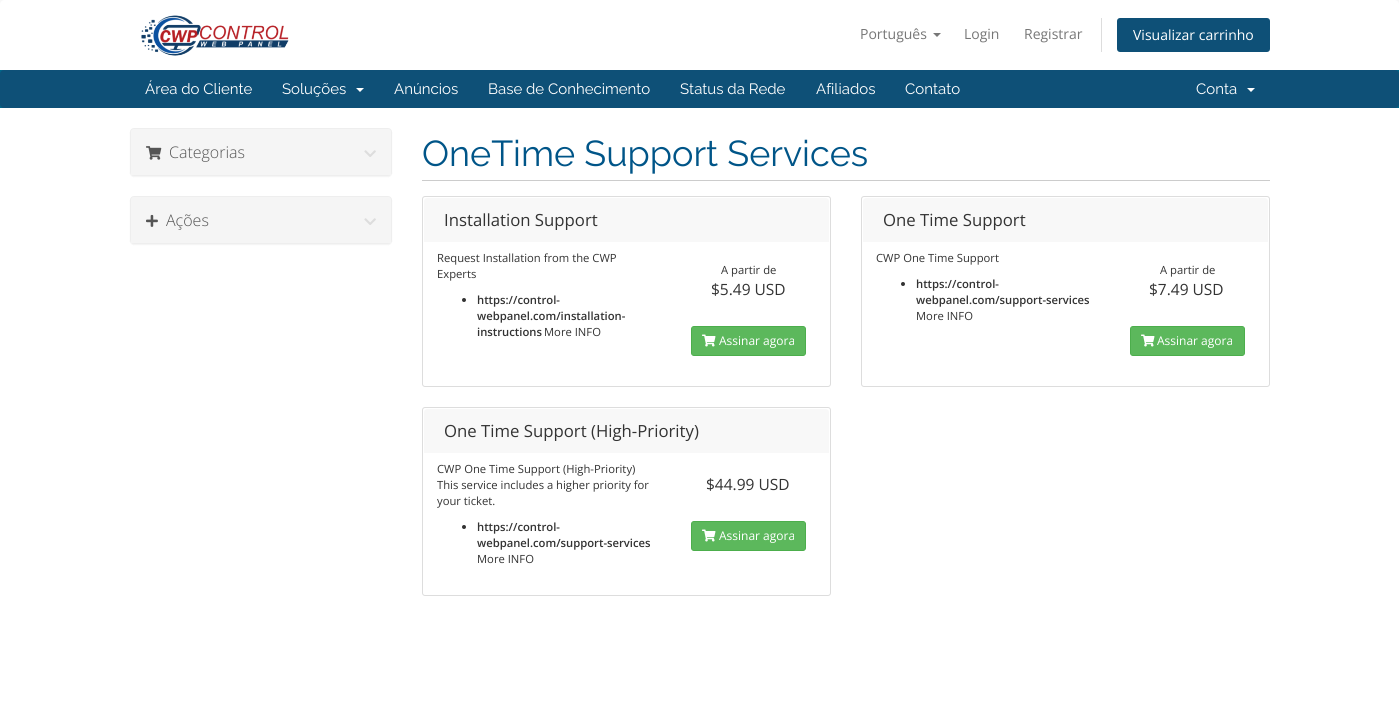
import math
import cairo

surface = cairo.ImageSurface(cairo.Format.RGB24, 1399, 720)
ctx = cairo.Context(surface)
options = cairo.FontOptions()
options.set_hint_metrics(cairo.HintMetrics.OFF)
options.set_hint_style(cairo.HintStyle.NONE)
ctx.set_font_options(options)
ctx.set_miter_limit(4)


def ink(r, g, b):
    ctx.set_source_rgb(r / 255, g / 255, b / 255)


def write(x, y, s, family, size, color, bold=False, italic=False):
    ctx.select_font_face(family, cairo.FontSlant.ITALIC if italic else cairo.FontSlant.NORMAL, cairo.FontWeight.BOLD if bold else cairo.FontWeight.NORMAL)
    ctx.set_font_size(size)
    ink(*color)
    ctx.move_to(x, y)
    ctx.show_text(s)


def block(x, y, w, h, *color):
    ink(*color)
    ctx.rectangle(x, y, w, h)
    ctx.fill()


def round_path(x, y, w, h, r):
    ctx.new_sub_path()
    for i, (u, v) in enumerate([(x + w - r, y + h - r), (x + r, y + h - r), (x + r, y + r), (x + w - r, y + r)]):
        ctx.arc(u, v, r, i * math.pi / 2, (i + 1) * math.pi / 2)
    ctx.close_path()


def blur_box(x, y, w, h, r, blur, alpha):
    ctx.push_group_with_content(cairo.Content.ALPHA)
    ctx.set_operator(cairo.Operator.SOURCE)
    for i in range(15, -16, -2):
        e = blur * i / 6
        if min(w, h) + 2 * e > 0:
            ctx.set_source_rgba(0, 0, 0, alpha * math.erfc((i - 1) / 8.5) / 2)
            round_path(x - e, y - e, w + 2 * e, h + 2 * e, max(0, min(r + e + blur * .6, min(w, h) / 2 + e)))
            ctx.fill()
    ctx.mask(ctx.pop_group())


def paste(path, x, y, w, h):
    ctx.save()
    ctx.set_source_surface(cairo.ImageSurface.create_from_png(path), x, y)
    ctx.rectangle(x, y, w, h)
    ctx.fill()
    ctx.restore()


s1 = dict(family="Open Sans", size=14, color=(119, 119, 119))
s2 = dict(family="Open Sans", size=14, color=(255, 255, 255))
s3 = dict(family="Raleway", size=15, color=(255, 255, 255))
s4 = dict(family="Open Sans Light", size=16, color=(85, 85, 85))
s5 = dict(family="Raleway", size=36, color=(0, 85, 136))
s6 = dict(family="Open Sans", size=16.75, color=(51, 51, 51))
s7 = dict(family="Open Sans", size=11.25, color=(51, 51, 51))
s8 = dict(family="Open Sans SemiBold", size=11.25, color=(51, 51, 51))
s9 = dict(family="Open Sans", size=15.5, color=(51, 51, 51))
s10 = dict(family="Open Sans", size=12, color=(255, 255, 255))

ink(248, 248, 248)
ctx.paint()
ink(255, 255, 255)
ctx.new_path()
ctx.move_to(5, 0)
ctx.line_to(1394, 0)
ctx.curve_to(1397, 0, 1399, 2, 1399, 5)
ctx.line_to(1399, 70)
ctx.line_to(0, 70)
ctx.line_to(0, 5)
ctx.curve_to(0, 2, 2, 0, 5, 0)
ctx.close_path()
ctx.fill()
paste("pic1.png", 141, 15, 148, 41)
write(860, 39, "Português", **s1)
ctx.new_path()
ctx.move_to(933, 33)
ctx.line_to(941, 33)
ctx.line_to(937, 37)
ctx.close_path()
ctx.fill()
write(964, 39, "Login", **s1)
write(1024, 39, "Registrar", **s1)
block(1101, 18, 1, 34, 221, 221, 221)
ink(14, 80, 119)
round_path(1117, 18, 153, 34, 3)
ctx.fill()
write(1133, 40, "Visualizar carrinho", **s2)
block(0, 70, 1399, 38, 0, 102, 135)
ink(14, 80, 119)
round_path(0, 70, 1399, 38, 4)
ctx.fill()
write(145, 94, "Área do Cliente", **s3)
write(282, 94, "Soluções", **s3)
ctx.new_path()
ctx.move_to(356, 88)
ctx.line_to(364, 88)
ctx.line_to(360, 92)
ctx.close_path()
ctx.fill()
write(394, 94, "Anúncios", **s3)
write(488, 94, "Base de Conhecimento", **s3)
write(680, 94, "Status da Rede", **s3)
write(816, 94, "Afiliados", **s3)
write(905, 94, "Contato", **s3)
write(1196, 94, "Conta", **s3)
ctx.new_path()
ctx.move_to(1247, 88)
ctx.line_to(1255, 88)
ctx.line_to(1251, 92)
ctx.close_path()
ctx.fill()
block(0, 108, 1399, 612, 255, 255, 255)
ink(0, 0, 0)
blur_box(130, 129, 262, 48, 4, 0.5, 0.05)
round_path(130.5, 128.5, 261, 47, 3.5)
ink(238, 238, 238)
ctx.set_line_width(1)
ctx.stroke()
ink(245, 245, 245)
ctx.new_path()
ctx.move_to(134, 129)
ctx.line_to(388, 129)
ctx.curve_to(389.5, 129, 391, 130.5, 391, 132)
ctx.line_to(391, 175)
ctx.line_to(131, 175)
ctx.line_to(131, 132)
ctx.curve_to(131, 130.5, 132.5, 129, 134, 129)
ctx.close_path()
ctx.fill()
paste("pic2.png", 146, 146, 16, 14)
write(169, 158, "Categorias", **s4)
paste("pic3.png", 364, 150, 12, 7)
ink(0, 0, 0)
blur_box(130, 197, 262, 48, 4, 0.5, 0.05)
round_path(130.5, 196.5, 261, 47, 3.5)
ink(238, 238, 238)
ctx.stroke()
ink(245, 245, 245)
ctx.new_path()
ctx.move_to(134, 197)
ctx.line_to(388, 197)
ctx.curve_to(389.5, 197, 391, 198.5, 391, 200)
ctx.line_to(391, 243)
ctx.line_to(131, 243)
ctx.line_to(131, 200)
ctx.curve_to(131, 198.5, 132.5, 197, 134, 197)
ctx.close_path()
ctx.fill()
paste("pic4.png", 146, 214, 12, 13)
write(166, 226, "Ações", **s4)
paste("pic3.png", 364, 218, 12, 7)
block(422, 180, 848, 1, 204, 204, 204)
write(422, 166, "OneTime Support Services", **s5)
round_path(422.5, 196.5, 408, 190, 2.5)
ink(221, 221, 221)
ctx.stroke()
ink(248, 248, 248)
ctx.new_path()
ctx.move_to(427, 198)
ctx.line_to(826, 198)
ctx.curve_to(827.5, 198, 829, 199.5, 829, 201)
ctx.line_to(829, 242)
ctx.line_to(424, 242)
ctx.line_to(424, 201)
ctx.curve_to(424, 199.5, 425.5, 198, 427, 198)
ctx.close_path()
ctx.fill()
write(444, 226, "Installation Support", **s6)
write(437, 262, "Request Installation from the CWP", **s7)
write(437, 278, "Experts", **s7)
ctx.new_path()
ctx.arc(464, 300, 2, 0, 2 * math.pi)
ctx.fill()
write(477, 304, "https://control-", **s8)
write(477, 320, "webpanel.com/installation-", **s8)
write(477, 336, "instructions", **s8)
write(544, 336, "More INFO", **s7)
write(721, 274, "A partir de", **s7)
write(711, 295, "$5.49 USD", **s9)
ink(92, 184, 92)
round_path(691.5, 326.5, 114, 29, 2.5)
ctx.fill_preserve()
ink(76, 174, 76)
ctx.stroke()
paste("pic5.png", 702, 334, 14, 13)
write(719, 345, "Assinar agora", **s10)
round_path(861.5, 196.5, 408, 190, 2.5)
ink(221, 221, 221)
ctx.stroke()
ink(248, 248, 248)
ctx.new_path()
ctx.move_to(866, 198)
ctx.line_to(1265, 198)
ctx.curve_to(1266.5, 198, 1268, 199.5, 1268, 201)
ctx.line_to(1268, 242)
ctx.line_to(863, 242)
ctx.line_to(863, 201)
ctx.curve_to(863, 199.5, 864.5, 198, 866, 198)
ctx.close_path()
ctx.fill()
write(883, 226, "One Time Support", **s6)
write(876, 262, "CWP One Time Support", **s7)
ctx.new_path()
ctx.arc(903, 284, 2, 0, 2 * math.pi)
ctx.fill()
write(916, 288, "https://control-", **s8)
write(916, 304, "webpanel.com/support-services", **s8)
write(916, 320, "More INFO", **s7)
write(1160, 274, "A partir de", **s7)
write(1149, 295, "$7.49 USD", **s9)
ink(92, 184, 92)
round_path(1130.5, 326.5, 114, 29, 2.5)
ctx.fill_preserve()
ink(76, 174, 76)
ctx.stroke()
paste("pic5.png", 1141, 334, 14, 13)
write(1157, 345, "Assinar agora", **s10)
round_path(422.5, 407.5, 408, 188, 2.5)
ink(221, 221, 221)
ctx.stroke()
ink(248, 248, 248)
ctx.new_path()
ctx.move_to(427, 409)
ctx.line_to(826, 409)
ctx.curve_to(827.5, 409, 829, 410.5, 829, 412)
ctx.line_to(829, 453)
ctx.line_to(424, 453)
ctx.line_to(424, 412)
ctx.curve_to(424, 410.5, 425.5, 409, 427, 409)
ctx.close_path()
ctx.fill()
write(444, 437, "One Time Support (High-Priority)", **s6)
write(437, 473, "CWP One Time Support (High-Priority)", **s7)
write(437, 489, "This service includes a higher priority for", **s7)
write(437, 505, "your ticket.", **s7)
ctx.new_path()
ctx.arc(464, 527, 2, 0, 2 * math.pi)
ctx.fill()
write(477, 531, "https://control-", **s8)
write(477, 547, "webpanel.com/support-services", **s8)
write(477, 563, "More INFO", **s7)
write(706, 490, "$44.99 USD", **s9)
ink(92, 184, 92)
round_path(691.5, 521.5, 114, 29, 2.5)
ctx.fill_preserve()
ink(76, 174, 76)
ctx.stroke()
paste("pic5.png", 702, 529, 14, 13)
write(719, 540, "Assinar agora", **s10)
surface.write_to_png("screenshot.png")
